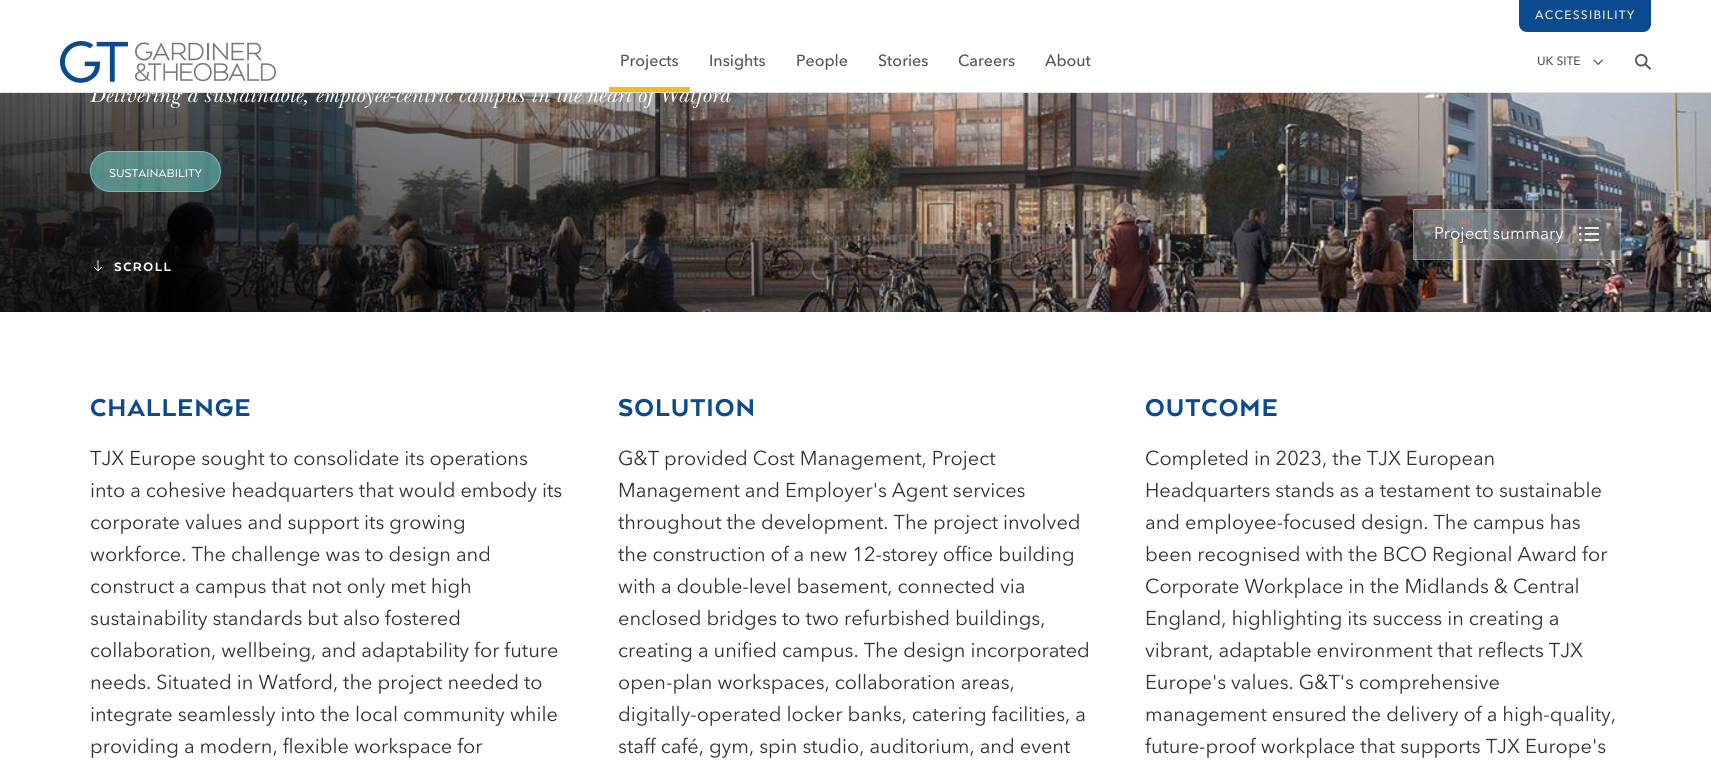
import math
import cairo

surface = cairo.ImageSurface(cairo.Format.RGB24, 1711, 766)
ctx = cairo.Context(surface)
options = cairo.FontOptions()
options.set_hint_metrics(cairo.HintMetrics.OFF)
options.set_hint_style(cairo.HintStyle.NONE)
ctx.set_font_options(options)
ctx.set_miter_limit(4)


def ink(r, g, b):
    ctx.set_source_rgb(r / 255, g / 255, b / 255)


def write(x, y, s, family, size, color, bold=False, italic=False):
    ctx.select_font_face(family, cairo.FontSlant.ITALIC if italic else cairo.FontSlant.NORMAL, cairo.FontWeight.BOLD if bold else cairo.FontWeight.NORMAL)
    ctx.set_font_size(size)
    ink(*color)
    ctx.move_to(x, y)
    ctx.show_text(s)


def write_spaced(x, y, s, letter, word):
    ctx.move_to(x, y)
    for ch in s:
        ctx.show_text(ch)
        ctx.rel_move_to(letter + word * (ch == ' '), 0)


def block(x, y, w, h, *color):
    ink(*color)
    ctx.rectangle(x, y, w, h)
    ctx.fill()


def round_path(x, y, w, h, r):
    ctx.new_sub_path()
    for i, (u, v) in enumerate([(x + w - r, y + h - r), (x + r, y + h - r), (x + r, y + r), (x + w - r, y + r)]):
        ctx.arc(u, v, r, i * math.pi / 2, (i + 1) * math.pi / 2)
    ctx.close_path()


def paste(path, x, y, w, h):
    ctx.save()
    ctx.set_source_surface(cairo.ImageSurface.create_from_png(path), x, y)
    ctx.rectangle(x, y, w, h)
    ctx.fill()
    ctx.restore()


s1 = dict(family="Avenir Next Medium", size=16, color=(86, 85, 86))
s2 = dict(family="Avenir Next Medium", size=12, color=(86, 85, 86))
s3 = dict(family="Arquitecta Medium", size=13, color=(243, 245, 248))
s4 = dict(family="Avenir Next", size=17, color=(255, 255, 255))
s5 = dict(family="Avenir Next", size=20, color=(51, 50, 51))

ink(255, 255, 255)
ctx.paint()
paste("pic5.png", 0, 93, 1711, 219)
ctx.select_font_face("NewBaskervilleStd", cairo.FontSlant.ITALIC)
ctx.set_font_size(22)
ink(255, 255, 255)
write_spaced(90, 102, "Delivering a sustainable, employee-centric campus in the heart of Watford", 0.25, 0)
block(0, 92, 1711, 1, 226, 226, 226)
ink(11, 74, 142)
ctx.new_path()
ctx.move_to(1519, 0)
ctx.line_to(1651, 0)
ctx.line_to(1651, 24)
ctx.curve_to(1651, 28.5, 1647.5, 32, 1643, 32)
ctx.line_to(1527, 32)
ctx.curve_to(1522.5, 32, 1519, 28.5, 1519, 24)
ctx.close_path()
ctx.fill()
ctx.select_font_face("Avenir Next Medium")
ctx.set_font_size(12)
ink(231, 237, 244)
write_spaced(1535, 19, "ACCESSIBILITY", 1.25, 0)
paste("pic1.png", 60, 41, 216, 42)
write(620, 66, "Projects", **s1)
block(609, 87, 81, 5, 249, 185, 23)
write(709, 66, "Insights", **s1)
write(796, 66, "People", **s1)
write(878, 66, "Stories", **s1)
write(958, 66, "Careers", **s1)
write(1045, 66, "About", **s1)
write(1537, 65, "UK SITE", **s2)
paste("pic2.png", 1593, 59, 10, 6)
paste("pic3.png", 1635, 54, 17, 16)
ctx.set_source_rgba(0.416, 0.757, 0.741, 0.6)
round_path(90.5, 151.5, 130, 40, 20)
ctx.fill_preserve()
ink(106, 193, 189)
ctx.set_line_width(1)
ctx.stroke()
write(109, 177, "SUSTAINABILITY", **s3)
paste("pic4.png", 94, 260, 8, 12)
ctx.select_font_face("Arquitecta Black")
ctx.set_font_size(14)
ink(255, 255, 255)
write_spaced(114, 271, "SCROLL", 1.5, 0)
ctx.set_source_rgba(0.639, 0.639, 0.639, 0.45)
ctx.rectangle(1413, 209, 208, 51)
ctx.fill()
ctx.rectangle(1413.5, 209.5, 207, 50)
ctx.set_source_rgba(1, 1, 1, 0.3)
ctx.stroke()
write(1434, 239, "Project summary", **s4)
paste("pic6.png", 1579, 226, 21, 16)
ctx.select_font_face("Arquitecta Black")
ctx.set_font_size(28)
ink(11, 74, 142)
write_spaced(90, 416, "CHALLENGE", 1, 0)
write(90, 465, "TJX Europe sought to consolidate its operations", **s5)
write(90, 497, "into a cohesive headquarters that would embody its", **s5)
write(90, 529, "corporate values and support its growing", **s5)
write(90, 561, "workforce. The challenge was to design and", **s5)
write(90, 593, "construct a campus that not only met high", **s5)
write(90, 625, "sustainability standards but also fostered", **s5)
write(90, 657, "collaboration, wellbeing, and adaptability for future", **s5)
write(90, 689, "needs. Situated in Watford, the project needed to", **s5)
write(90, 721, "integrate seamlessly into the local community while", **s5)
write(90, 753, "providing a modern, flexible workspace for", **s5)
ctx.select_font_face("Arquitecta Black")
ctx.set_font_size(28)
ink(11, 74, 142)
write_spaced(618, 416, "SOLUTION", 1, 0)
write(618, 465, "G&T provided Cost Management, Project", **s5)
write(618, 497, "Management and Employer's Agent services", **s5)
write(618, 529, "throughout the development. The project involved", **s5)
write(618, 561, "the construction of a new 12-storey office building", **s5)
write(618, 593, "with a double-level basement, connected via", **s5)
write(618, 625, "enclosed bridges to two refurbished buildings,", **s5)
write(618, 657, "creating a unified campus. The design incorporated", **s5)
write(618, 689, "open-plan workspaces, collaboration areas,", **s5)
write(618, 721, "digitally-operated locker banks, catering facilities, a", **s5)
write(618, 753, "staff café, gym, spin studio, auditorium, and event", **s5)
ctx.select_font_face("Arquitecta Black")
ctx.set_font_size(28)
ink(11, 74, 142)
write_spaced(1145, 416, "OUTCOME", 1, 0)
write(1145, 465, "Completed in 2023, the TJX European", **s5)
write(1145, 497, "Headquarters stands as a testament to sustainable", **s5)
write(1145, 529, "and employee-focused design. The campus has", **s5)
write(1145, 561, "been recognised with the BCO Regional Award for", **s5)
write(1145, 593, "Corporate Workplace in the Midlands & Central", **s5)
write(1145, 625, "England, highlighting its success in creating a", **s5)
write(1145, 657, "vibrant, adaptable environment that reflects TJX", **s5)
write(1145, 689, "Europe's values. G&T's comprehensive", **s5)
write(1145, 721, "management ensured the delivery of a high-quality,", **s5)
write(1145, 753, "future-proof workplace that supports TJX Europe's", **s5)
surface.write_to_png("screenshot.png")
